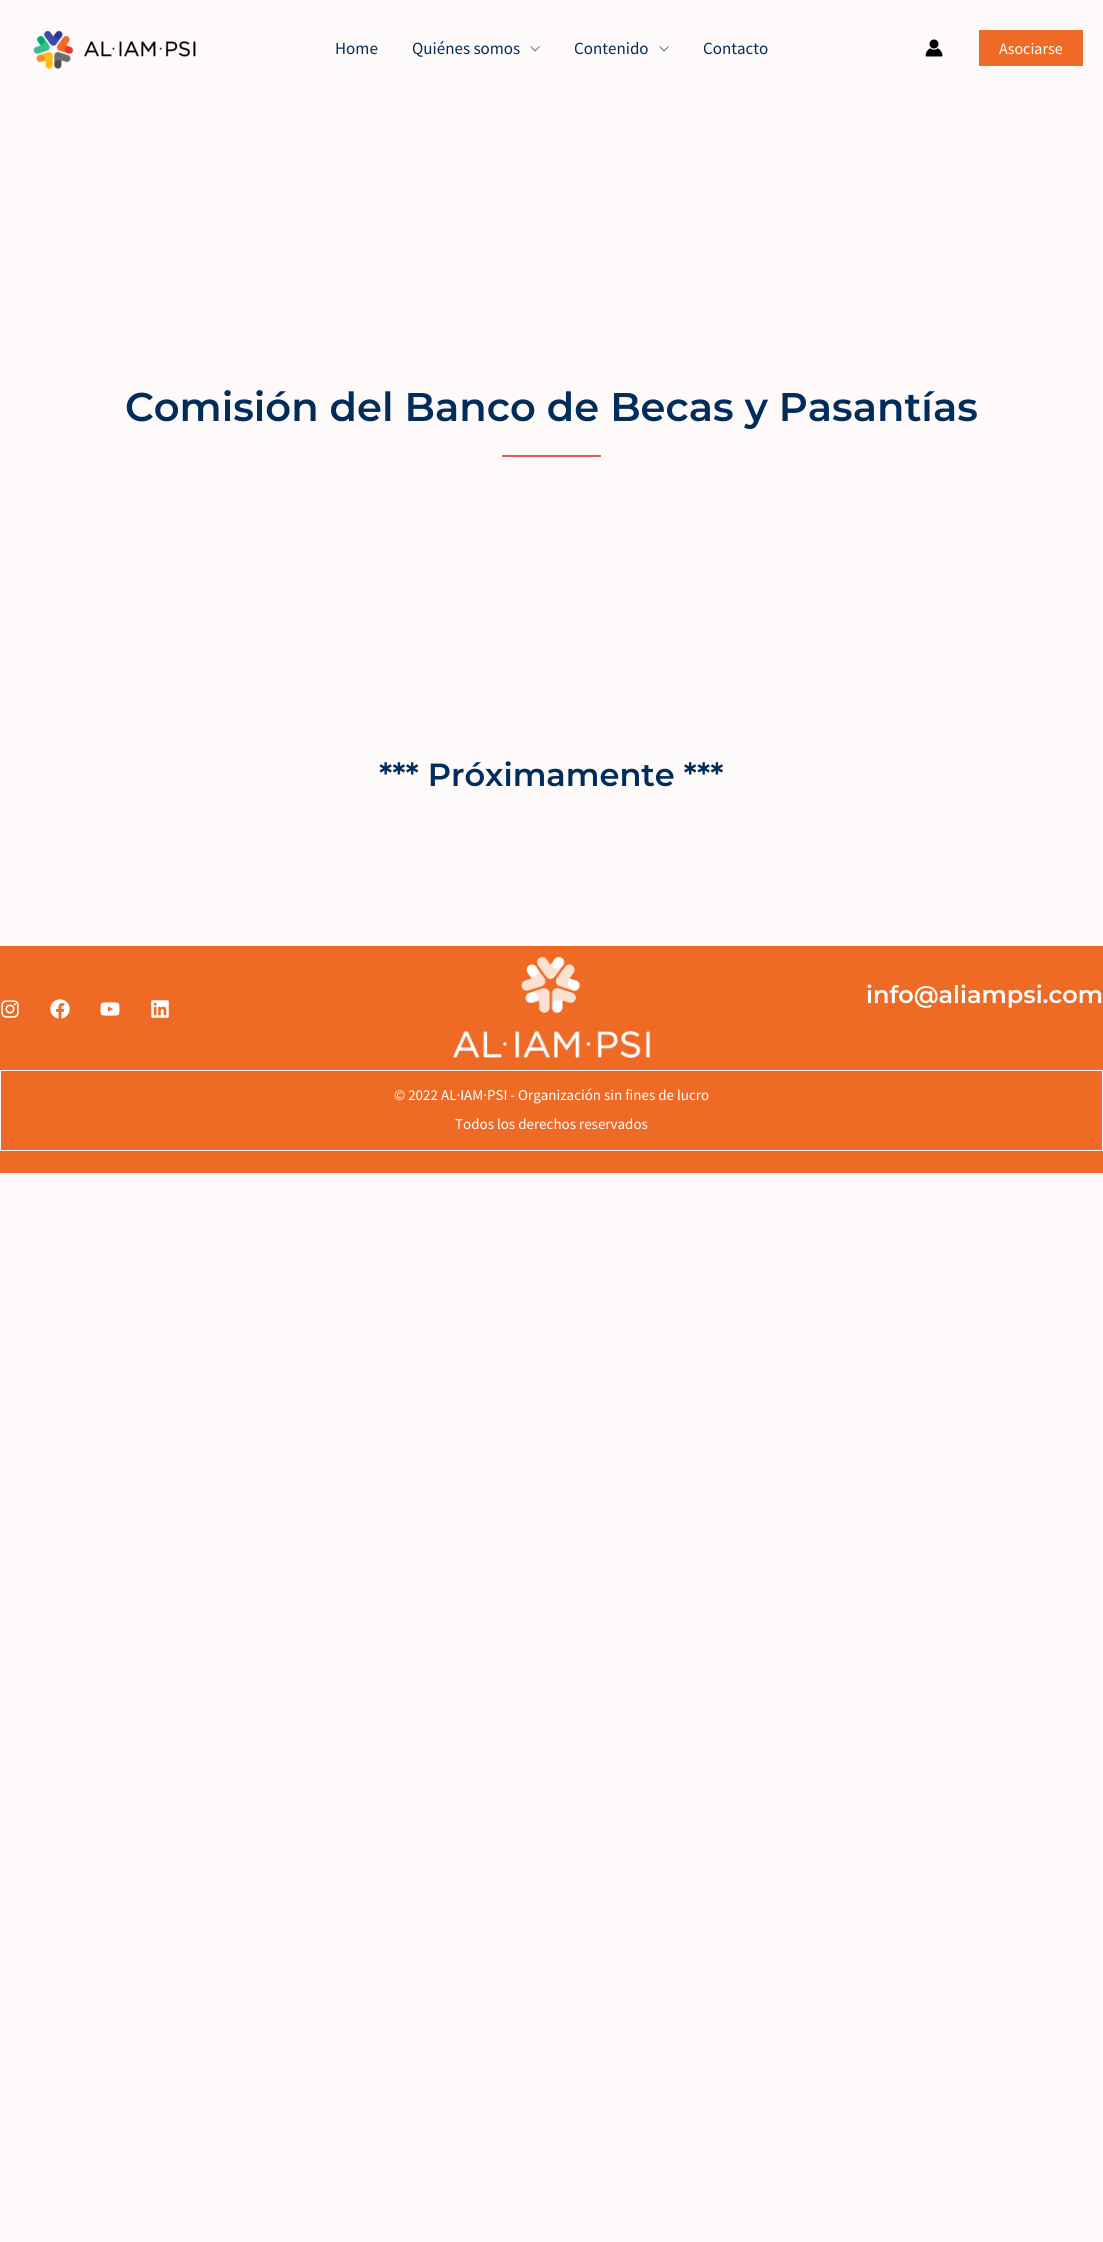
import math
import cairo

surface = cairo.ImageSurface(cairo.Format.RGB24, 1103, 2242)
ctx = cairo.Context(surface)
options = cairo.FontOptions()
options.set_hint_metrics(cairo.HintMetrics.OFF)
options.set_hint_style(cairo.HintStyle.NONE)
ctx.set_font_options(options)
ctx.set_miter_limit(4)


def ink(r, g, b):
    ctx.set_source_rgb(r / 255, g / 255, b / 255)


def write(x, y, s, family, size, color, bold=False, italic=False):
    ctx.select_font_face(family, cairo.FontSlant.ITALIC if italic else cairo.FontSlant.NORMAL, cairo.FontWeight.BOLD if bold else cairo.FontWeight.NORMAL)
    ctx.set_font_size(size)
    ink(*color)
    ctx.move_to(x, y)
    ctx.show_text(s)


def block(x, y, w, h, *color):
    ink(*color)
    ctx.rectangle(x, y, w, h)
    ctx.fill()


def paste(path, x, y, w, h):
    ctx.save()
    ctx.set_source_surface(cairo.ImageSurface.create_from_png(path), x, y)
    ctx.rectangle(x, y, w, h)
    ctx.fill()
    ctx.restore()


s1 = dict(family="Source Sans Pro", size=17, color=(0, 45, 91))
s2 = dict(family="Source Sans Pro", size=16, color=(255, 255, 255))
s3 = dict(family="Montserrat SemiBold", size=40, color=(0, 45, 91))
s4 = dict(family="Montserrat SemiBold", size=32, color=(0, 45, 91))
s5 = dict(family="Montserrat SemiBold", size=24, color=(255, 255, 255))
s6 = dict(family="Source Sans Pro", size=15, color=(255, 255, 255))

ink(254, 250, 250)
ctx.paint()
paste("pic1.png", 33, 30, 163, 39)
write(335, 54, "Home", **s1)
write(412, 54, "Quiénes somos", **s1)
paste("pic2.png", 530, 46, 10, 6)
write(574, 54, "Contenido", **s1)
paste("pic2.png", 659, 46, 10, 6)
write(703, 54, "Contacto", **s1)
paste("pic3.png", 925, 39, 18, 18)
block(979, 30, 104, 36, 239, 106, 37)
write(999, 54, "Asociarse", **s2)
write(125, 421, "Comisión del Banco de Becas y Pasantías", **s3)
block(502, 455, 99, 2, 236, 91, 83)
write(379, 786, "*** Próximamente ***", **s4)
block(0, 946, 1103, 227, 239, 106, 37)
paste("pic4.png", 1, 1000, 18, 18)
paste("pic5.png", 50, 999, 20, 20)
paste("pic6.png", 100, 1002, 20, 14)
paste("pic7.png", 151, 1000, 18, 18)
paste("pic8.png", 453, 956, 198, 102)
write(866, 1003, "info@aliampsi.com", **s5)
block(0, 1070, 1103, 1, 242, 245, 247)
block(0, 1070, 1, 81, 242, 245, 247)
block(1102, 1071, 1, 80, 242, 245, 247)
block(1, 1150, 1102, 1, 242, 245, 247)
write(394, 1100, "© 2022 AL·IAM·PSI - Organización sin fines de lucro", **s6)
write(455, 1129, "Todos los derechos reservados", **s6)
surface.write_to_png("screenshot.png")
